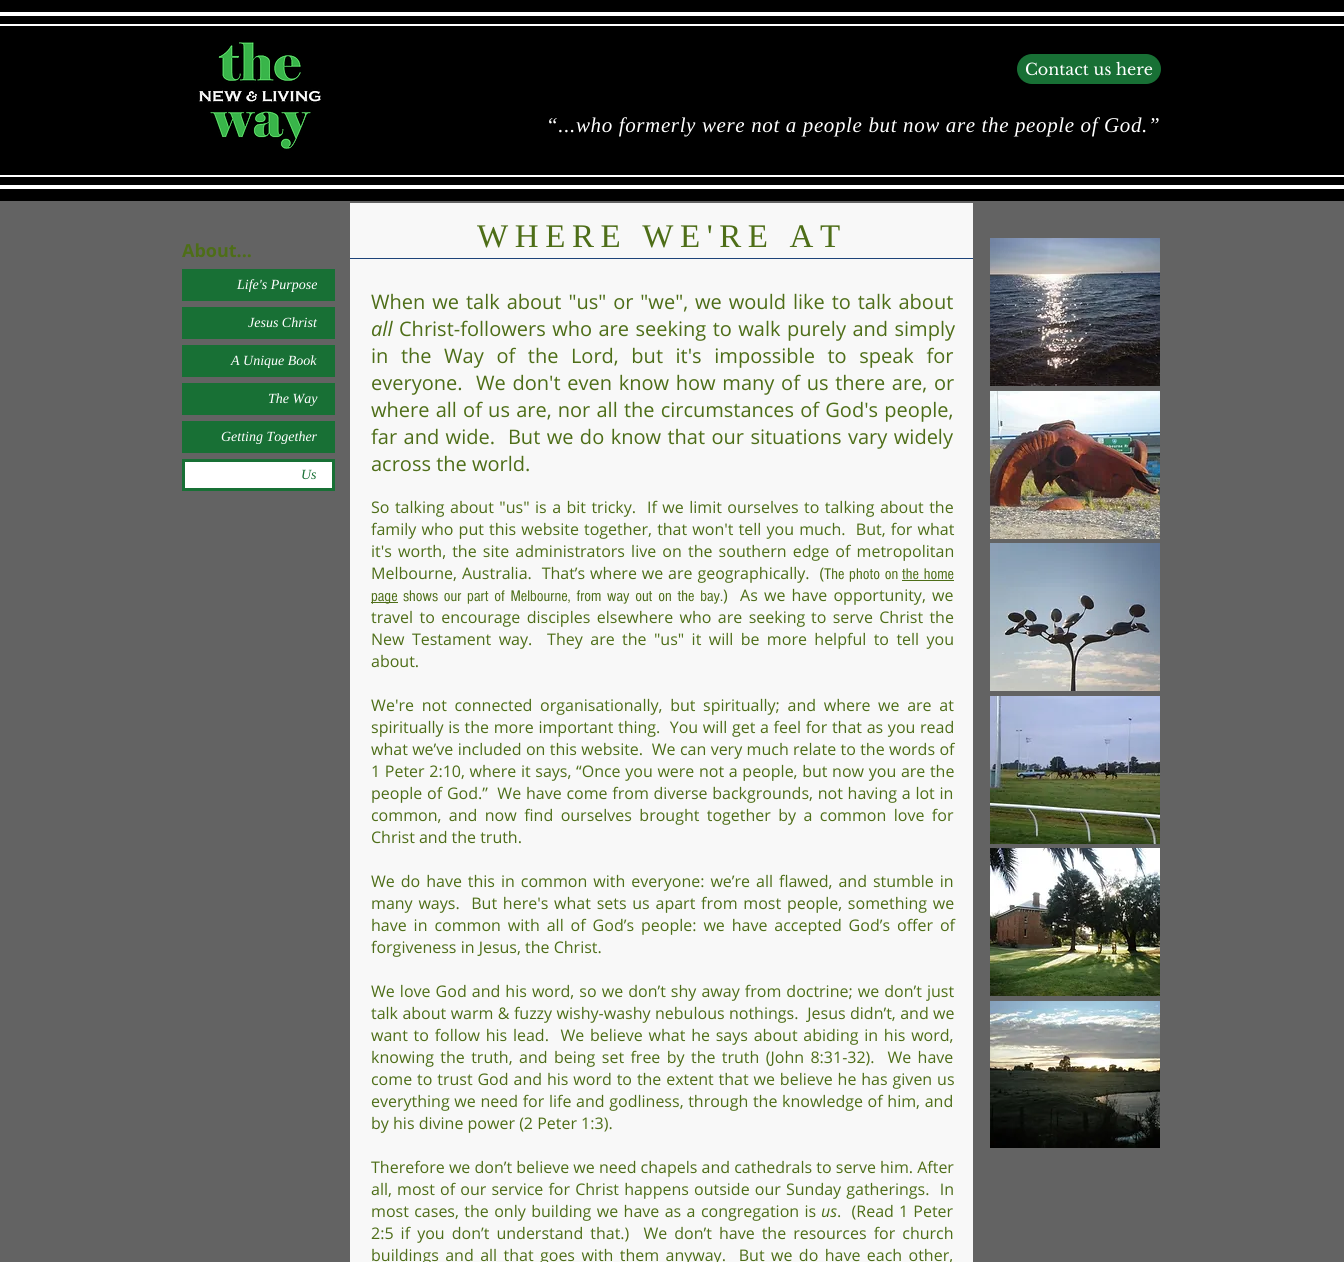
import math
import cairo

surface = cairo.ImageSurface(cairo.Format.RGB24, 1344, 1262)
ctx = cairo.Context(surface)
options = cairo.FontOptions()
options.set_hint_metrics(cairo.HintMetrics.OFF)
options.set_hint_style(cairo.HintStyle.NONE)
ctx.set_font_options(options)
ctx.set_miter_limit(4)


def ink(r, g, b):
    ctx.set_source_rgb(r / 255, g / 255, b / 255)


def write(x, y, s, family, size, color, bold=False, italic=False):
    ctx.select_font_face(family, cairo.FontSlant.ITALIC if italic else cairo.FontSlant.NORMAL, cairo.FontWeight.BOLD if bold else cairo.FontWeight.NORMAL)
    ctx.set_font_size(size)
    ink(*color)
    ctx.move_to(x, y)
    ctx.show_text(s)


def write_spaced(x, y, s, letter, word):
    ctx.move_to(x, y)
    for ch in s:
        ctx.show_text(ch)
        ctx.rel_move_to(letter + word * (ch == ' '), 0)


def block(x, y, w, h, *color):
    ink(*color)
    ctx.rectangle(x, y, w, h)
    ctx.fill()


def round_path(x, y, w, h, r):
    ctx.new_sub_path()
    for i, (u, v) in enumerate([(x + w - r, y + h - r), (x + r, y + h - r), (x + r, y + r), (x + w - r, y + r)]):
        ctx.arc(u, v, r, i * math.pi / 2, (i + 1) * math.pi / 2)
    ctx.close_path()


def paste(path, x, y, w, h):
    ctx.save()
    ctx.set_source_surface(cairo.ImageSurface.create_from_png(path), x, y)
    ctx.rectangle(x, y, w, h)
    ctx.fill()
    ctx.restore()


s1 = dict(family="Libre Baskerville", size=16, color=(255, 255, 255))
s2 = dict(family="Open Sans", size=18, color=(78, 110, 24), bold=True)
s3 = dict(family="Liberation Serif", size=14, color=(255, 255, 255), italic=True)
s4 = dict(family="Liberation Serif", size=14, color=(24, 112, 53), italic=True)
s5 = dict(family="Open Sans", size=20, color=(78, 110, 24), italic=True)
s6 = dict(family="Open Sans", size=20, color=(78, 110, 24))
s7 = dict(family="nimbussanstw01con", size=16, color=(78, 110, 24))
s8 = dict(family="Open Sans", size=16, color=(78, 110, 24))
s9 = dict(family="Open Sans", size=16, color=(78, 110, 24), italic=True)

ink(99, 99, 99)
ctx.paint()
block(0, 0, 1344, 201, 0, 0, 0)
block(0, 12, 1344, 4, 255, 255, 255)
block(0, 185, 1344, 4, 255, 255, 255)
block(0, 24, 1344, 2, 255, 255, 255)
block(0, 175, 1344, 2, 255, 255, 255)
paste("pic1.png", 199, 42, 122, 107)
ink(24, 112, 53)
round_path(1017, 54, 144, 30, 15)
ctx.fill()
write(1025, 75, "Contact us here", **s1)
ctx.select_font_face("Liberation Serif", cairo.FontSlant.ITALIC)
ctx.set_font_size(21)
write_spaced(546, 132, "“...who formerly were not a people but now are the people of God.”", 0.63, 0)
write(182, 257, "About...", **s2)
block(182, 269, 153, 32, 24, 112, 53)
write(237, 289, "Life's Purpose", **s3)
block(182, 307, 153, 32, 24, 112, 53)
write(248, 327, "Jesus Christ", **s3)
block(182, 345, 153, 32, 24, 112, 53)
write(231, 365, "A Unique Book", **s3)
block(182, 383, 153, 32, 24, 112, 53)
write(268, 403, "The Way", **s3)
block(182, 421, 153, 32, 24, 112, 53)
write(221, 441, "Getting Together", **s3)
ctx.rectangle(183.5, 460.5, 150, 29)
ctx.fill_preserve()
ink(24, 112, 53)
ctx.set_line_width(3)
ctx.stroke()
write(301, 479, "Us", **s4)
block(350, 203, 623, 1059, 248, 248, 248)
ctx.select_font_face("Liberation Serif")
ctx.set_font_size(33)
ink(78, 110, 24)
write_spaced(477, 247, "WHERE WE'RE AT", 6.6, 0)
block(350, 258, 623, 1, 29, 67, 121)
ctx.select_font_face("Open Sans")
ctx.set_font_size(20)
ink(78, 110, 24)
write_spaced(371, 309, "When we talk about \"us\" or \"we\", we would like to talk about", 0, 1.75)
write(371, 336, "all", **s5)
ctx.select_font_face("Open Sans")
write_spaced(399, 336, "Christ-followers who are seeking to walk purely and simply", 0, 1.25)
write_spaced(371, 363, "in the Way of the Lord, but it's impossible to speak for", 0, 7.4)
write_spaced(371, 390, "everyone.  We don't even know how many of us there are, or", 0, 1.5)
write_spaced(371, 417, "where all of us are, nor all the circumstances of God's people,", 0, 1)
write_spaced(371, 444, "far and wide.  But we do know that our situations vary widely", 0, 1.25)
write(371, 471, "across the world.", **s6)
ctx.set_font_size(16)
write_spaced(371, 513, "So talking about \"us\" is a bit tricky.  If we limit ourselves to talking about the", 0, 1.3)
write_spaced(371, 535, "family who put this website together, that won't tell you much.  But, for what", 0, 1)
write_spaced(371, 557, "it's worth, the site administrators live on the southern edge of metropolitan", 0, 2)
write_spaced(371, 579, "Melbourne, Australia.  That’s where we are geographically.  (", 0, 0.75)
ctx.select_font_face("nimbussanstw01con")
write_spaced(824, 579, "The photo on", 0, 1)
write_spaced(902, 579, "the home", 0, 1)
block(902, 580, 52, 1, 78, 110, 24)
block(371, 602, 27, 1, 78, 110, 24)
write(371, 601, "page", **s7)
write_spaced(403, 601, "shows our part of Melbourne, from way out on the bay.", 0, 2)
ctx.select_font_face("Open Sans")
write_spaced(723, 601, ")  As we have opportunity, we", 0, 2)
write_spaced(371, 623, "travel to encourage disciples elsewhere who are seeking", 0, 2.25)
write_spaced(811, 623, "to serve Christ the", 0, 2.25)
write_spaced(371, 645, "New Testament way.  They are the \"us\" it will be more helpful to tell you", 0, 3.25)
write(371, 667, "about.", **s8)
write(371, 711, "W", **s8)
write_spaced(386, 711, "e're not connected organisationally, but", 0, 3.5)
write_spaced(703, 711, "spiritually; and where we are at", 0, 3.5)
write_spaced(371, 733, "spiritually is the more important thing.  You will get a feel for that as you read", 0, 0.5)
write_spaced(371, 755, "what we’ve included on this website.  We can very much relate to the words of", 0, 0.2)
write_spaced(371, 777, "1 Peter 2:10, where it says, “Once you were not a people, but now you are the", 0, 0.5)
write_spaced(371, 799, "people of God.”  We have come from diverse backgrounds, not having a lot in", 0, 0.6)
write_spaced(371, 821, "common, and now find ourselves brought together by a common love for", 0, 3.25)
write(371, 843, "Christ and the truth.", **s8)
write_spaced(371, 887, "We do have this in common with everyone: we’re all flawed, and stumble in", 0, 1.8)
write_spaced(371, 909, "many ways.  But here's what sets us apart from most people, something we", 0, 1.6)
write_spaced(371, 931, "have in common with all of God’s people: we have accepted God’s offer of", 0, 2.75)
write(371, 953, "forgiveness in Jesus, the Christ.", **s8)
write_spaced(371, 997, "We love God and his word, so we don’t shy away from doctrine; we don’t just", 0, 0.9)
write_spaced(371, 1019, "talk about warm & fuzzy wishy-washy nebulous nothings.  Jesus didn’t, and we", 0, 0.25)
write_spaced(371, 1041, "want to follow his lead.  We believe what he says about abiding in his word,", 0, 1.6)
write_spaced(371, 1063, "knowing the truth, and being set free by the truth (John 8:31-32).  We have", 0, 2.25)
write_spaced(371, 1085, "come to trust God and his word to the extent that we believe he has given us", 0, 0.75)
write_spaced(371, 1107, "everything we need for life and godliness, through the knowledge of him, and", 0, 0.5)
write(371, 1129, "by his divine power (2 Peter 1:3).", **s8)
write(371, 1173, "Therefore we don’t believe we need chapels and cathedrals to serve him. After", **s8)
write_spaced(371, 1195, "all, most of our service for Christ happens outside our Sunday gatherings.  In", 0, 1)
write_spaced(371, 1217, "most cases, the only building we have as a congregation is", 0, 1.25)
write(821, 1217, "us", **s9)
ctx.select_font_face("Open Sans")
write_spaced(837, 1217, ".  (Read 1 Peter", 0, 1)
write_spaced(371, 1239, "2:5 if you don’t understand that.)  We don’t have the resources for church", 0, 2.9)
write_spaced(371, 1261, "buildings and all that goes with them anyway.  But we do have each other,", 0, 2.25)
paste("pic2.png", 990, 238, 170, 148)
paste("pic3.png", 990, 391, 170, 148)
paste("pic4.png", 990, 543, 170, 148)
paste("pic5.png", 990, 696, 170, 148)
paste("pic6.png", 990, 848, 170, 148)
paste("pic7.png", 990, 1001, 170, 147)
surface.write_to_png("screenshot.png")
